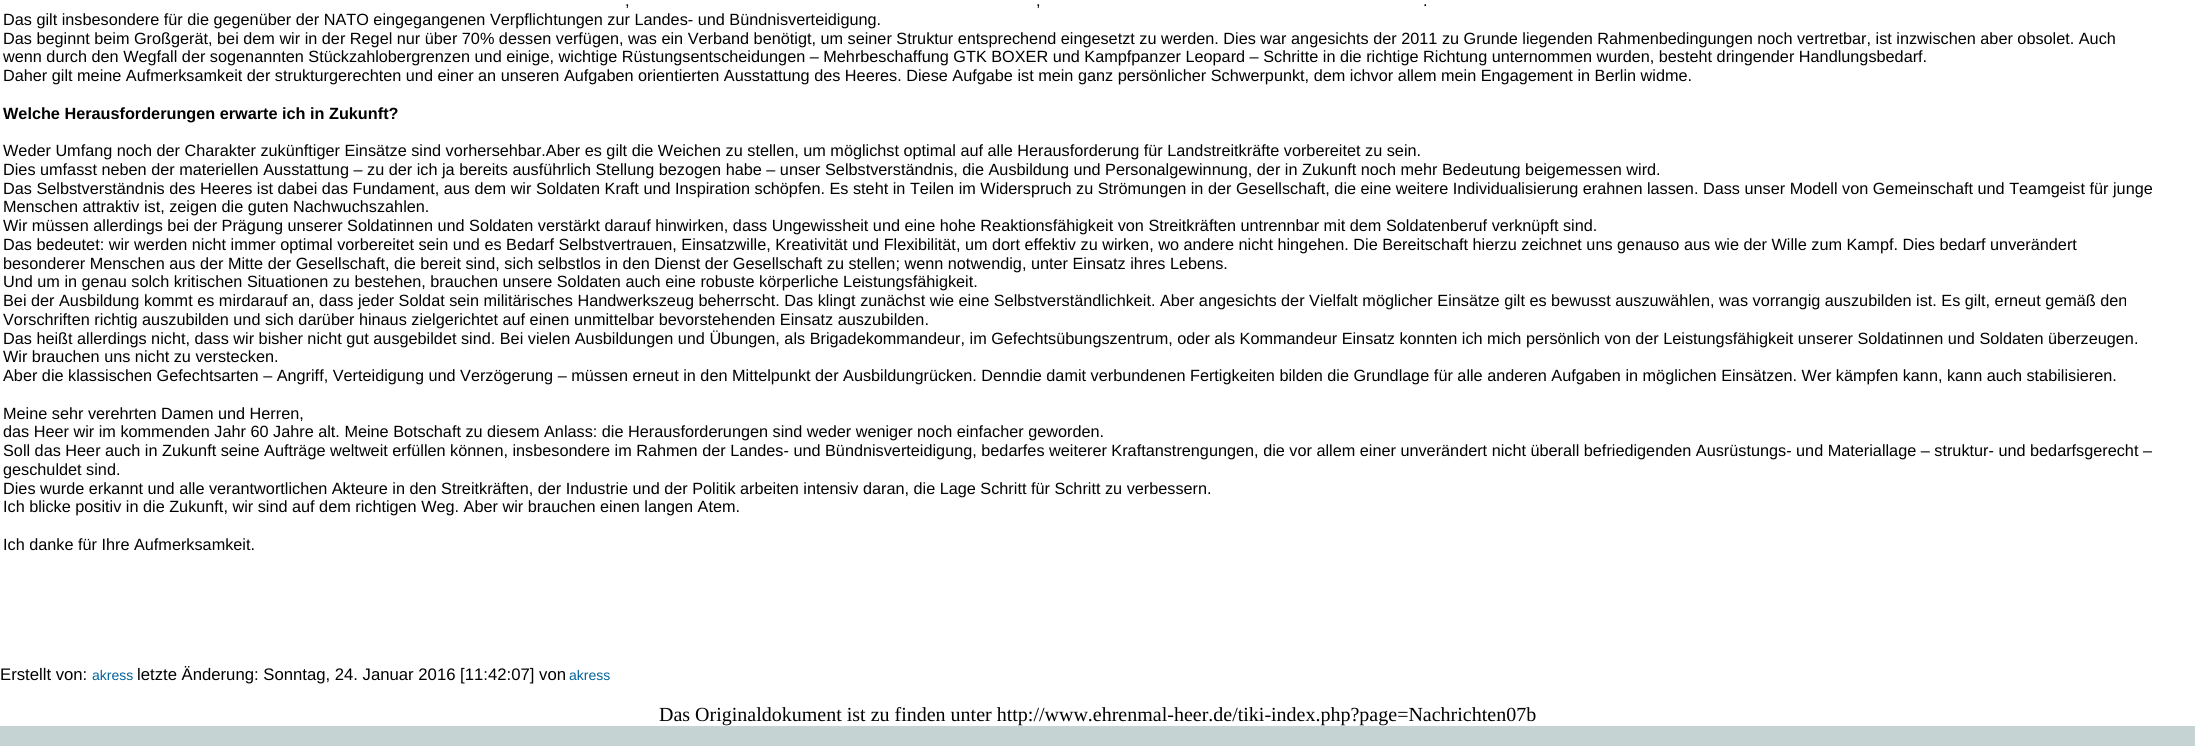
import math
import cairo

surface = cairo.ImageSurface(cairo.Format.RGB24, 2195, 746)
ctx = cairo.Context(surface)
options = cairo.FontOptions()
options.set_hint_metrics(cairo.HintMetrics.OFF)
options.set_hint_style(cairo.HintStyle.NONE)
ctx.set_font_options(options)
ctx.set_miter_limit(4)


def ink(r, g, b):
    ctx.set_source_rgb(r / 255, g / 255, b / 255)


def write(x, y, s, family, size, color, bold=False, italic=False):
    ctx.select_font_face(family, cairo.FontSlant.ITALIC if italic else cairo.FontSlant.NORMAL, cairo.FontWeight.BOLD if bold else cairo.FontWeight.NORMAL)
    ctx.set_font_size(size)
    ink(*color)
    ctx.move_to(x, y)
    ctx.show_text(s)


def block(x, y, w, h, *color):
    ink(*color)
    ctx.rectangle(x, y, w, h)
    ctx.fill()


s1 = dict(family="Liberation Sans", size=16.25, color=(0, 0, 0))
s2 = dict(family="Liberation Sans", size=16.25, color=(0, 0, 0), bold=True)
s3 = dict(family="Liberation Sans", size=16.7, color=(0, 0, 0))
s4 = dict(family="Liberation Sans", size=14, color=(0, 99, 156))
s5 = dict(family="Liberation Serif", size=20, color=(0, 0, 0))

ink(198, 211, 211)
ctx.paint()
block(0, 0, 2195, 726, 255, 255, 255)
write(625, 6, ",", **s1)
write(1036, 6, ",", **s1)
write(1423, 6, ".", **s1)
write(3, 25, "Das gilt insbesondere für die gegenüber der NATO eingegangenen Verpflichtungen zur Landes- und Bündnisverteidigung.", **s1)
write(3, 44, "Das beginnt beim Großgerät, bei dem wir in der Regel nur über 70% dessen verfügen, was ein Verband benötigt, um seiner Struktur entsprechend eingesetzt zu werden. Dies war angesichts der 2011 zu Grunde liegenden Rahmenbedingungen noch vertretbar, ist inzwischen aber obsolet. Auch", **s1)
write(3, 62, "wenn durch den Wegfall der sogenannten Stückzahlobergrenzen und einige, wichtige Rüstungsentscheidungen – Mehrbeschaffung GTK BOXER und Kampfpanzer Leopard – Schritte in die richtige Richtung unternommen wurden, besteht dringender Handlungsbedarf.", **s1)
write(3, 81, "Daher gilt meine Aufmerksamkeit der strukturgerechten und einer an unseren Aufgaben orientierten Ausstattung des Heeres. Diese Aufgabe ist mein ganz persönlicher Schwerpunkt, dem ichvor allem mein Engagement in Berlin widme.", **s1)
write(3, 119, "Welche Herausforderungen erwarte ich in Zukunft?", **s2)
write(3, 156, "Weder Umfang noch der Charakter zukünftiger Einsätze sind vorhersehbar.Aber es gilt die Weichen zu stellen, um möglichst optimal auf alle Herausforderung für Landstreitkräfte vorbereitet zu sein.", **s1)
write(3, 175, "Dies umfasst neben der materiellen Ausstattung – zu der ich ja bereits ausführlich Stellung bezogen habe – unser Selbstverständnis, die Ausbildung und Personalgewinnung, der in Zukunft noch mehr Bedeutung beigemessen wird.", **s1)
write(3, 194, "Das Selbstverständnis des Heeres ist dabei das Fundament, aus dem wir Soldaten Kraft und Inspiration schöpfen. Es steht in Teilen im Widerspruch zu Strömungen in der Gesellschaft, die eine weitere Individualisierung erahnen lassen. Dass unser Modell von Gemeinschaft und Teamgeist für junge", **s1)
write(3, 212, "Menschen attraktiv ist, zeigen die guten Nachwuchszahlen.", **s1)
write(3, 231, "Wir müssen allerdings bei der Prägung unserer Soldatinnen und Soldaten verstärkt darauf hinwirken, dass Ungewissheit und eine hohe Reaktionsfähigkeit von Streitkräften untrennbar mit dem Soldatenberuf verknüpft sind.", **s1)
write(3, 250, "Das bedeutet: wir werden nicht immer optimal vorbereitet sein und es Bedarf Selbstvertrauen, Einsatzwille, Kreativität und Flexibilität, um dort effektiv zu wirken, wo andere nicht hingehen. Die Bereitschaft hierzu zeichnet uns genauso aus wie der Wille zum Kampf. Dies bedarf unverändert", **s1)
write(3, 269, "besonderer Menschen aus der Mitte der Gesellschaft, die bereit sind, sich selbstlos in den Dienst der Gesellschaft zu stellen; wenn notwendig, unter Einsatz ihres Lebens.", **s1)
write(3, 287, "Und um in genau solch kritischen Situationen zu bestehen, brauchen unsere Soldaten auch eine robuste körperliche Leistungsfähigkeit.", **s1)
write(3, 306, "Bei der Ausbildung kommt es mirdarauf an, dass jeder Soldat sein militärisches Handwerkszeug beherrscht. Das klingt zunächst wie eine Selbstverständlichkeit. Aber angesichts der Vielfalt möglicher Einsätze gilt es bewusst auszuwählen, was vorrangig auszubilden ist. Es gilt, erneut gemäß den", **s1)
write(3, 325, "Vorschriften richtig auszubilden und sich darüber hinaus zielgerichtet auf einen unmittelbar bevorstehenden Einsatz auszubilden.", **s1)
write(3, 344, "Das heißt allerdings nicht, dass wir bisher nicht gut ausgebildet sind. Bei vielen Ausbildungen und Übungen, als Brigadekommandeur, im Gefechtsübungszentrum, oder als Kommandeur Einsatz konnten ich mich persönlich von der Leistungsfähigkeit unserer Soldatinnen und Soldaten überzeugen.", **s1)
write(3, 362, "Wir brauchen uns nicht zu verstecken.", **s1)
write(3, 381, "Aber die klassischen Gefechtsarten – Angriff, Verteidigung und Verzögerung – müssen erneut in den Mittelpunkt der Ausbildungrücken. Denndie damit verbundenen Fertigkeiten bilden die Grundlage für alle anderen Aufgaben in möglichen Einsätzen. Wer kämpfen kann, kann auch stabilisieren.", **s1)
write(3, 419, "Meine sehr verehrten Damen und Herren,", **s1)
write(3, 437, "das Heer wir im kommenden Jahr 60 Jahre alt. Meine Botschaft zu diesem Anlass: die Herausforderungen sind weder weniger noch einfacher geworden.", **s1)
write(3, 456, "Soll das Heer auch in Zukunft seine Aufträge weltweit erfüllen können, insbesondere im Rahmen der Landes- und Bündnisverteidigung, bedarfes weiterer Kraftanstrengungen, die vor allem einer unverändert nicht überall befriedigenden Ausrüstungs- und Materiallage – struktur- und bedarfsgerecht –", **s1)
write(3, 475, "geschuldet sind.", **s1)
write(3, 494, "Dies wurde erkannt und alle verantwortlichen Akteure in den Streitkräften, der Industrie und der Politik arbeiten intensiv daran, die Lage Schritt für Schritt zu verbessern.", **s1)
write(3, 512, "Ich blicke positiv in die Zukunft, wir sind auf dem richtigen Weg. Aber wir brauchen einen langen Atem.", **s1)
write(3, 550, "Ich danke für Ihre Aufmerksamkeit.", **s1)
write(0, 680, "Erstellt von:", **s3)
write(92, 680, "akress", **s4)
write(137, 680, "letzte Änderung: Sonntag, 24. Januar 2016 [11:42:07] von", **s3)
write(569, 680, "akress", **s4)
write(659, 721, "Das Originaldokument ist zu finden unter http://www.ehrenmal-heer.de/tiki-index.php?page=Nachrichten07b", **s5)
surface.write_to_png("screenshot.png")
